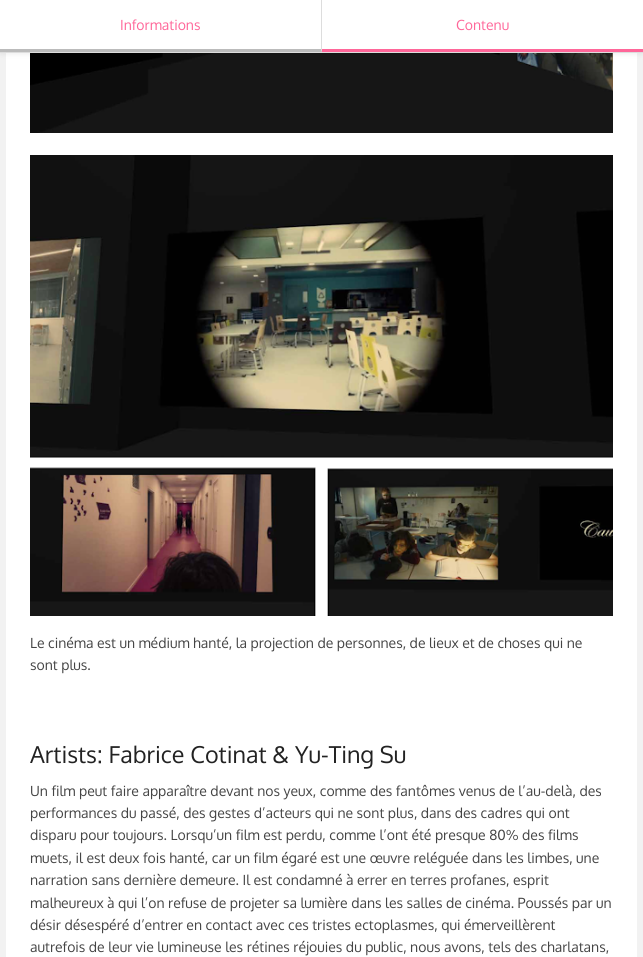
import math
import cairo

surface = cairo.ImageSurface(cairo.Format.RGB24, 643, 957)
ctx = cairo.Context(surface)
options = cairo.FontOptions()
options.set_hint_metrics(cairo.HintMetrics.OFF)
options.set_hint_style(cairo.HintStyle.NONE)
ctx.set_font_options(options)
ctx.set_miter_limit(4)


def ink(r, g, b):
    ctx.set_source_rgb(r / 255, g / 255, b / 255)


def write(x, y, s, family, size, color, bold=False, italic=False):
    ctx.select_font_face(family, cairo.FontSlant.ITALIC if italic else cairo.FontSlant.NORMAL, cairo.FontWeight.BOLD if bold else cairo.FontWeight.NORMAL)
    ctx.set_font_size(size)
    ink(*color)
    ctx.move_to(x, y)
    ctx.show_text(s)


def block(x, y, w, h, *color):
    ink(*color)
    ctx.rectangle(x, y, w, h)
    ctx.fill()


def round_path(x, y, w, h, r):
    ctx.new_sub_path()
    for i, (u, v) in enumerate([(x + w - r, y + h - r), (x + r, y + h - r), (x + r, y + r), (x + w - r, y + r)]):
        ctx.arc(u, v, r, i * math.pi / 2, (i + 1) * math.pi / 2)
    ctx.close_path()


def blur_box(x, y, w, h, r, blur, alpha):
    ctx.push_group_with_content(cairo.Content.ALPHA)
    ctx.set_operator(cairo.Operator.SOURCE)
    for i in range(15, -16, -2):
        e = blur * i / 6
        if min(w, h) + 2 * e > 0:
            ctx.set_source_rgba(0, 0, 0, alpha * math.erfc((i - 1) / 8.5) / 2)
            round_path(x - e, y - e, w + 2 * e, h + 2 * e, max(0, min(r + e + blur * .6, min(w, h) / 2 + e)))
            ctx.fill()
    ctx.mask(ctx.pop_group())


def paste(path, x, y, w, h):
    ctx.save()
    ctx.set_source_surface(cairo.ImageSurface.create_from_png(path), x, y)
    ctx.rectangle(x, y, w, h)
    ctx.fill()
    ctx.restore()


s1 = dict(family="Oxygen", size=14, color=(255, 102, 153))
s2 = dict(family="Oxygen", size=14, color=(68, 68, 68))
s3 = dict(family="Oxygen", size=23.3, color=(34, 34, 34))

ink(242, 242, 242)
ctx.paint()
block(6, 53, 631, 904, 255, 255, 255)
paste("pic1.png", 30, 53, 583, 80)
ink(0, 0, 0)
blur_box(1, 2, 641, 51, 0, 3, 0.1)
block(0, 0, 643, 52, 255, 255, 255)
block(0, 52, 643, 1, 221, 221, 221)
ctx.new_path()
ctx.move_to(322, 0)
ctx.line_to(322, 52)
ctx.line_to(321, 49)
ctx.line_to(321, 0)
ctx.close_path()
ctx.fill()
ink(187, 187, 187)
ctx.new_path()
ctx.move_to(322, 52)
ctx.line_to(0, 52)
ctx.line_to(0, 49)
ctx.line_to(321, 49)
ctx.close_path()
ctx.fill()
write(120, 30, "Informations", **s1)
block(322, 49, 321, 3, 255, 102, 153)
write(456, 30, "Contenu", **s1)
paste("pic2.png", 30, 155, 583, 461)
write(30, 648, "Le cinéma est un médium hanté, la projection de personnes, de lieux et de choses qui ne", **s2)
write(30, 670, "sont plus.", **s2)
write(30, 763, "Artists: Fabrice Cotinat & Yu-Ting Su", **s3)
write(30, 796, "Un film peut faire apparaître devant nos yeux, comme des fantômes venus de l’au-delà, des", **s2)
write(30, 818, "performances du passé, des gestes d’acteurs qui ne sont plus, dans des cadres qui ont", **s2)
write(30, 840, "disparu pour toujours. Lorsqu’un film est perdu, comme l’ont été presque 80% des films", **s2)
write(30, 863, "muets, il est deux fois hanté, car un film égaré est une œuvre reléguée dans les limbes, une", **s2)
write(30, 885, "narration sans dernière demeure. Il est condamné à errer en terres profanes, esprit", **s2)
write(30, 908, "malheureux à qui l’on refuse de projeter sa lumière dans les salles de cinéma. Poussés par un", **s2)
write(30, 930, "désir désespéré d’entrer en contact avec ces tristes ectoplasmes, qui émerveillèrent", **s2)
write(30, 952, "autrefois de leur vie lumineuse les rétines réjouies du public, nous avons, tels des charlatans,", **s2)
surface.write_to_png("screenshot.png")
